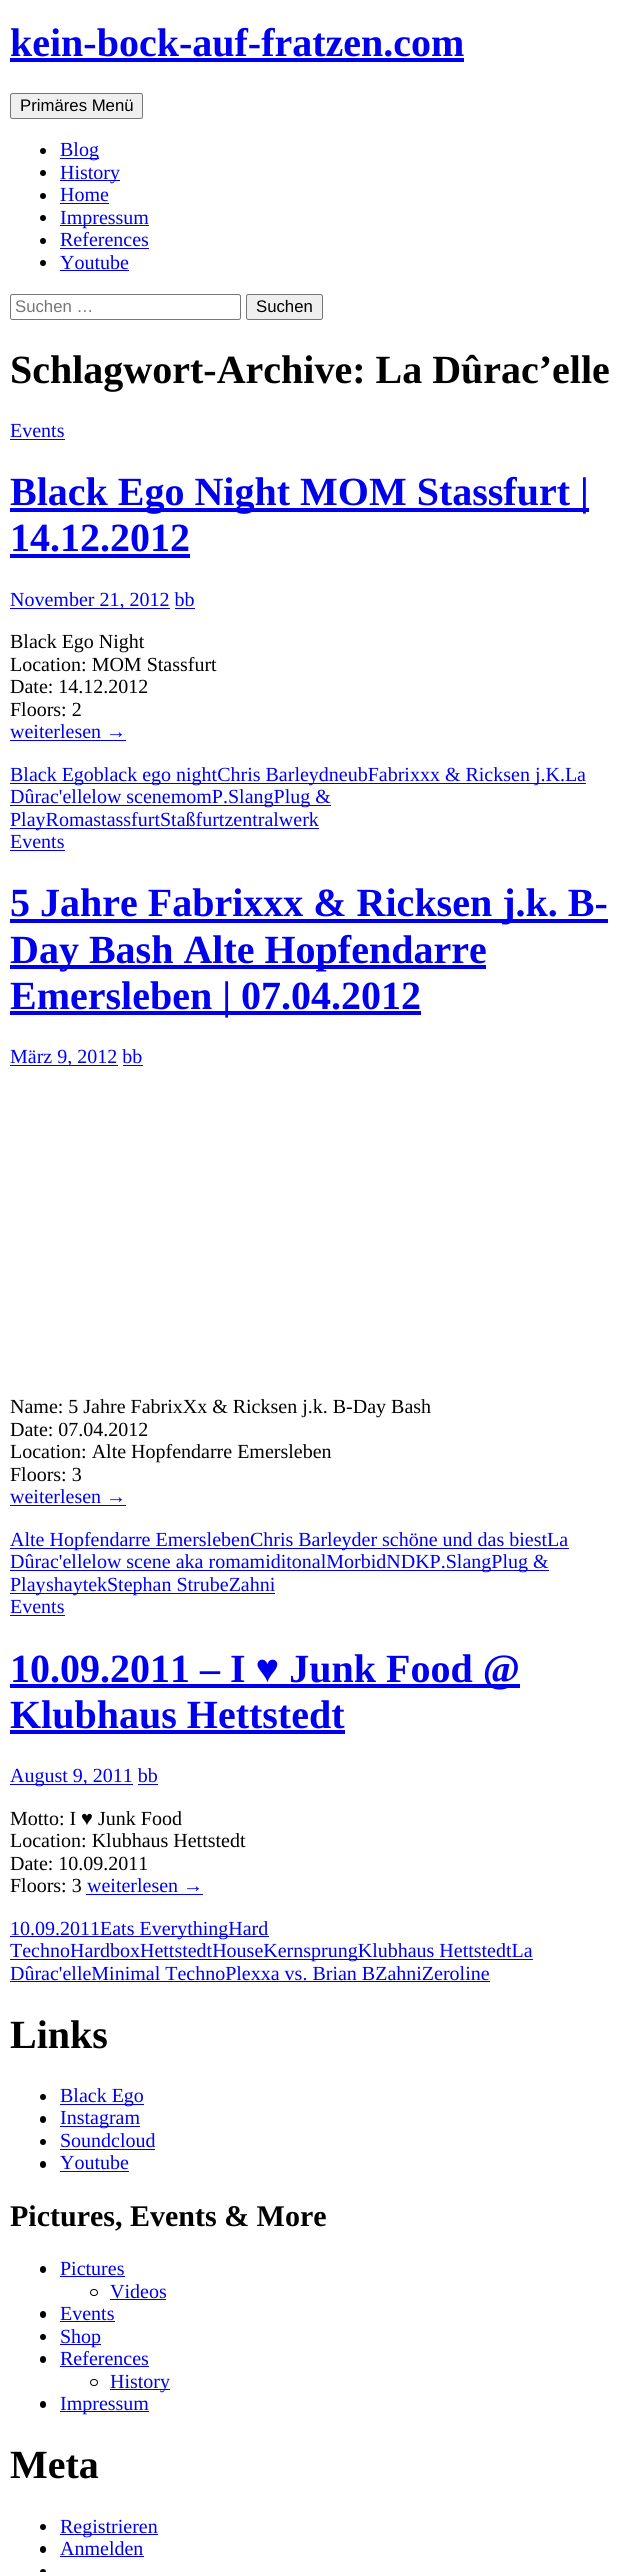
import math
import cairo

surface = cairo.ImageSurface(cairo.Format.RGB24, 630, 2572)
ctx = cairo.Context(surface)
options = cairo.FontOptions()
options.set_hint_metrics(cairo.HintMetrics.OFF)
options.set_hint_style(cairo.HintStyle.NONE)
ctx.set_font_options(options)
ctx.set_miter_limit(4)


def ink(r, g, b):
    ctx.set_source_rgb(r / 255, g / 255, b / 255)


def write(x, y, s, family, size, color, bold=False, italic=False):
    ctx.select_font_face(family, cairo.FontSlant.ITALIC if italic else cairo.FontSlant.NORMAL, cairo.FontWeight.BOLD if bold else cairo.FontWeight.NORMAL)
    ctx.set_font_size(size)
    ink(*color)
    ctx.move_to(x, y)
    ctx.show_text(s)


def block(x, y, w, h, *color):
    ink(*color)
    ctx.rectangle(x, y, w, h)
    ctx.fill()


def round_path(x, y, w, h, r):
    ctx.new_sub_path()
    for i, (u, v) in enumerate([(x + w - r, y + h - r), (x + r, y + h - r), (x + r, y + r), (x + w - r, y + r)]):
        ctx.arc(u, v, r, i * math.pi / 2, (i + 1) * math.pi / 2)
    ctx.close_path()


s1 = dict(family="Liberation Serif", size=40, color=(0, 0, 238), bold=True)
s2 = dict(family="Liberation Sans", size=16.75, color=(0, 0, 0))
s3 = dict(family="Liberation Serif", size=20, color=(0, 0, 238))
s4 = dict(family="Liberation Sans", size=16.75, color=(117, 117, 117))
s5 = dict(family="Liberation Serif", size=40, color=(0, 0, 0), bold=True)
s6 = dict(family="Liberation Serif", size=20, color=(0, 0, 0))
s7 = dict(family="Liberation Serif", size=30, color=(0, 0, 0), bold=True)

ink(255, 255, 255)
ctx.paint()
write(10, 56, "kein-bock-auf-fratzen.com", **s1)
block(10, 58, 454, 4, 0, 0, 238)
ink(239, 239, 239)
round_path(10.5, 93.5, 132, 25, 2)
ctx.fill_preserve()
ink(118, 118, 118)
ctx.set_line_width(1)
ctx.stroke()
write(20, 111, "Primäres Menü", **s2)
ctx.new_path()
ctx.arc(43, 151, 3, 0, 2 * math.pi)
ctx.fill()
block(60, 158, 39, 1, 0, 0, 238)
write(60, 156, "Blog", **s3)
ink(0, 0, 0)
ctx.new_path()
ctx.arc(43, 173, 3, 0, 2 * math.pi)
ctx.fill()
block(60, 180, 60, 1, 0, 0, 238)
write(60, 179, "History", **s3)
ink(0, 0, 0)
ctx.new_path()
ctx.arc(43, 196, 3, 0, 2 * math.pi)
ctx.fill()
write(60, 201, "Home", **s3)
block(60, 203, 49, 1, 0, 0, 238)
ink(0, 0, 0)
ctx.new_path()
ctx.arc(43, 218, 3, 0, 2 * math.pi)
ctx.fill()
block(60, 225, 89, 1, 0, 0, 238)
write(60, 224, "Impressum", **s3)
ink(0, 0, 0)
ctx.new_path()
ctx.arc(43, 241, 3, 0, 2 * math.pi)
ctx.fill()
write(60, 246, "References", **s3)
block(60, 248, 89, 1, 0, 0, 238)
ink(0, 0, 0)
ctx.new_path()
ctx.arc(43, 263, 3, 0, 2 * math.pi)
ctx.fill()
write(60, 269, "Youtube", **s3)
block(60, 270, 69, 1, 0, 0, 238)
round_path(10.5, 294.5, 230, 25, 2)
ink(118, 118, 118)
ctx.stroke()
write(15, 312, "Suchen …", **s4)
ink(239, 239, 239)
round_path(246.5, 294.5, 76, 25, 2)
ctx.fill_preserve()
ink(118, 118, 118)
ctx.stroke()
write(256, 312, "Suchen", **s2)
write(10, 383, "Schlagwort-Archive: La Dûrac’elle", **s5)
write(10, 437, "Events", **s3)
block(10, 439, 55, 1, 0, 0, 238)
block(10, 508, 579, 4, 0, 0, 238)
write(10, 505, "Black Ego Night MOM Stassfurt |", **s1)
write(10, 551, "14.12.2012", **s1)
block(10, 554, 180, 4, 0, 0, 238)
block(10, 608, 160, 1, 0, 0, 238)
write(10, 606, "November 21, 2012 bb", **s3)
block(175, 608, 20, 1, 0, 0, 238)
write(10, 648, "Black Ego Night", **s6)
write(10, 671, "Location: MOM Stassfurt", **s6)
write(10, 693, "Date: 14.12.2012", **s6)
write(10, 716, "Floors: 2", **s6)
write(10, 738, "weiterlesen →", **s3)
block(10, 740, 116, 1, 0, 0, 238)
block(10, 783, 576, 1, 0, 0, 238)
write(10, 781, "Black Egoblack ego nightChris BarleydneubFabrixxx & Ricksen j.K.La", **s3)
block(10, 805, 321, 1, 0, 0, 238)
write(10, 803, "Dûrac'ellelow scenemomP.SlangPlug &", **s3)
block(10, 828, 35, 1, 0, 0, 238)
write(10, 826, "PlayRomastassfurtStaßfurtzentralwerk", **s3)
block(45, 828, 274, 1, 0, 0, 238)
write(10, 848, "Events", **s3)
block(10, 850, 55, 1, 0, 0, 238)
block(10, 919, 598, 4, 0, 0, 238)
write(10, 916, "5 Jahre Fabrixxx & Ricksen j.k. B-", **s1)
block(10, 965, 476, 4, 0, 0, 238)
write(10, 963, "Day Bash Alte Hopfendarre", **s1)
block(10, 1011, 411, 4, 0, 0, 238)
write(10, 1009, "Emersleben | 07.04.2012", **s1)
block(10, 1065, 108, 1, 0, 0, 238)
write(10, 1063, "März 9, 2012 bb", **s3)
block(123, 1065, 20, 1, 0, 0, 238)
write(10, 1413, "Name: 5 Jahre FabrixXx & Ricksen j.k. B-Day Bash", **s6)
write(10, 1436, "Date: 07.04.2012", **s6)
write(10, 1458, "Location: Alte Hopfendarre Emersleben", **s6)
write(10, 1481, "Floors: 3", **s6)
write(10, 1503, "weiterlesen →", **s3)
block(10, 1505, 116, 1, 0, 0, 238)
block(10, 1548, 341, 1, 0, 0, 238)
write(10, 1546, "Alte Hopfendarre EmerslebenChris Barleyder schöne und das biestLa", **s3)
block(351, 1548, 218, 1, 0, 0, 238)
block(10, 1570, 539, 1, 0, 0, 238)
write(10, 1568, "Dûrac'ellelow scene aka romamiditonalMorbidNDKP.SlangPlug &", **s3)
block(10, 1593, 35, 1, 0, 0, 238)
write(10, 1591, "Play", **s3)
block(45, 1593, 61, 1, 0, 0, 238)
write(46, 1591, "shaytek", **s3)
block(106, 1593, 169, 1, 0, 0, 238)
write(107, 1591, "Stephan StrubeZahni", **s3)
write(10, 1613, "Events", **s3)
block(10, 1615, 55, 1, 0, 0, 238)
block(10, 1684, 510, 4, 0, 0, 238)
write(10, 1682, "10.09.2011 – I ♥ Junk Food @", **s1)
write(10, 1728, "Klubhaus Hettstedt", **s1)
block(10, 1730, 335, 4, 0, 0, 238)
block(10, 1784, 123, 1, 0, 0, 238)
write(10, 1782, "August 9, 2011 bb", **s3)
block(138, 1784, 20, 1, 0, 0, 238)
write(10, 1825, "Motto: I ♥ Junk Food", **s6)
write(10, 1847, "Location: Klubhaus Hettstedt", **s6)
write(10, 1870, "Date: 10.09.2011", **s6)
write(10, 1892, "Floors: 3", **s6)
write(87, 1892, "weiterlesen →", **s3)
block(86, 1894, 117, 1, 0, 0, 238)
block(10, 1936, 259, 1, 0, 0, 238)
write(10, 1935, "10.09.2011Eats EverythingHard", **s3)
block(10, 1959, 501, 1, 0, 0, 238)
write(10, 1957, "TechnoHardboxHettstedtHouseKernsprungKlubhaus HettstedtLa", **s3)
block(511, 1959, 22, 1, 0, 0, 238)
write(10, 1980, "Dûrac'elleMinimal TechnoPlexxa vs. Brian BZahniZeroline", **s3)
block(10, 1981, 480, 1, 0, 0, 238)
write(10, 2048, "Links", **s5)
ctx.new_path()
ctx.arc(43, 2097, 3, 0, 2 * math.pi)
ctx.fill()
block(60, 2104, 84, 1, 0, 0, 238)
write(60, 2102, "Black Ego", **s3)
ink(0, 0, 0)
round_path(40, 2116, 6, 7, 3)
ctx.fill()
block(60, 2126, 80, 1, 0, 0, 238)
write(60, 2124, "Instagram", **s3)
ink(0, 0, 0)
ctx.new_path()
ctx.arc(43, 2142, 3, 0, 2 * math.pi)
ctx.fill()
write(60, 2147, "Soundcloud", **s3)
block(60, 2149, 95, 1, 0, 0, 238)
ink(0, 0, 0)
round_path(40, 2161, 6, 7, 3)
ctx.fill()
write(60, 2169, "Youtube", **s3)
block(60, 2171, 69, 1, 0, 0, 238)
write(10, 2226, "Pictures, Events & More", **s7)
round_path(40, 2266, 6, 7, 3)
ctx.fill()
write(60, 2275, "Pictures", **s3)
block(60, 2276, 65, 1, 0, 0, 238)
round_path(90.5, 2289.5, 7, 6, 3)
ink(0, 0, 0)
ctx.stroke()
write(110, 2298, "Videos", **s3)
block(110, 2299, 56, 1, 0, 0, 238)
ink(0, 0, 0)
round_path(40, 2311, 6, 7, 3)
ctx.fill()
write(60, 2320, "Events", **s3)
block(60, 2321, 55, 1, 0, 0, 238)
ink(0, 0, 0)
ctx.new_path()
ctx.arc(43, 2337, 3, 0, 2 * math.pi)
ctx.fill()
block(60, 2344, 41, 1, 0, 0, 238)
write(60, 2343, "Shop", **s3)
ink(0, 0, 0)
round_path(40, 2356, 6, 7, 3)
ctx.fill()
write(60, 2365, "References", **s3)
block(60, 2366, 89, 1, 0, 0, 238)
round_path(90.5, 2379.5, 7, 6, 3)
ink(0, 0, 0)
ctx.stroke()
block(110, 2389, 60, 1, 0, 0, 238)
write(110, 2388, "History", **s3)
ink(0, 0, 0)
round_path(40, 2401, 6, 7, 3)
ctx.fill()
block(60, 2411, 89, 1, 0, 0, 238)
write(60, 2410, "Impressum", **s3)
write(10, 2478, "Meta", **s5)
ctx.new_path()
ctx.arc(43, 2527, 3, 0, 2 * math.pi)
ctx.fill()
block(60, 2534, 98, 1, 0, 0, 238)
write(60, 2533, "Registrieren", **s3)
ink(0, 0, 0)
round_path(40, 2546, 6, 7, 3)
ctx.fill()
write(60, 2555, "Anmelden", **s3)
block(60, 2556, 84, 1, 0, 0, 238)
ink(0, 0, 0)
ctx.new_path()
ctx.arc(43, 2572, 3, 0, 2 * math.pi)
ctx.fill()
surface.write_to_png("screenshot.png")
